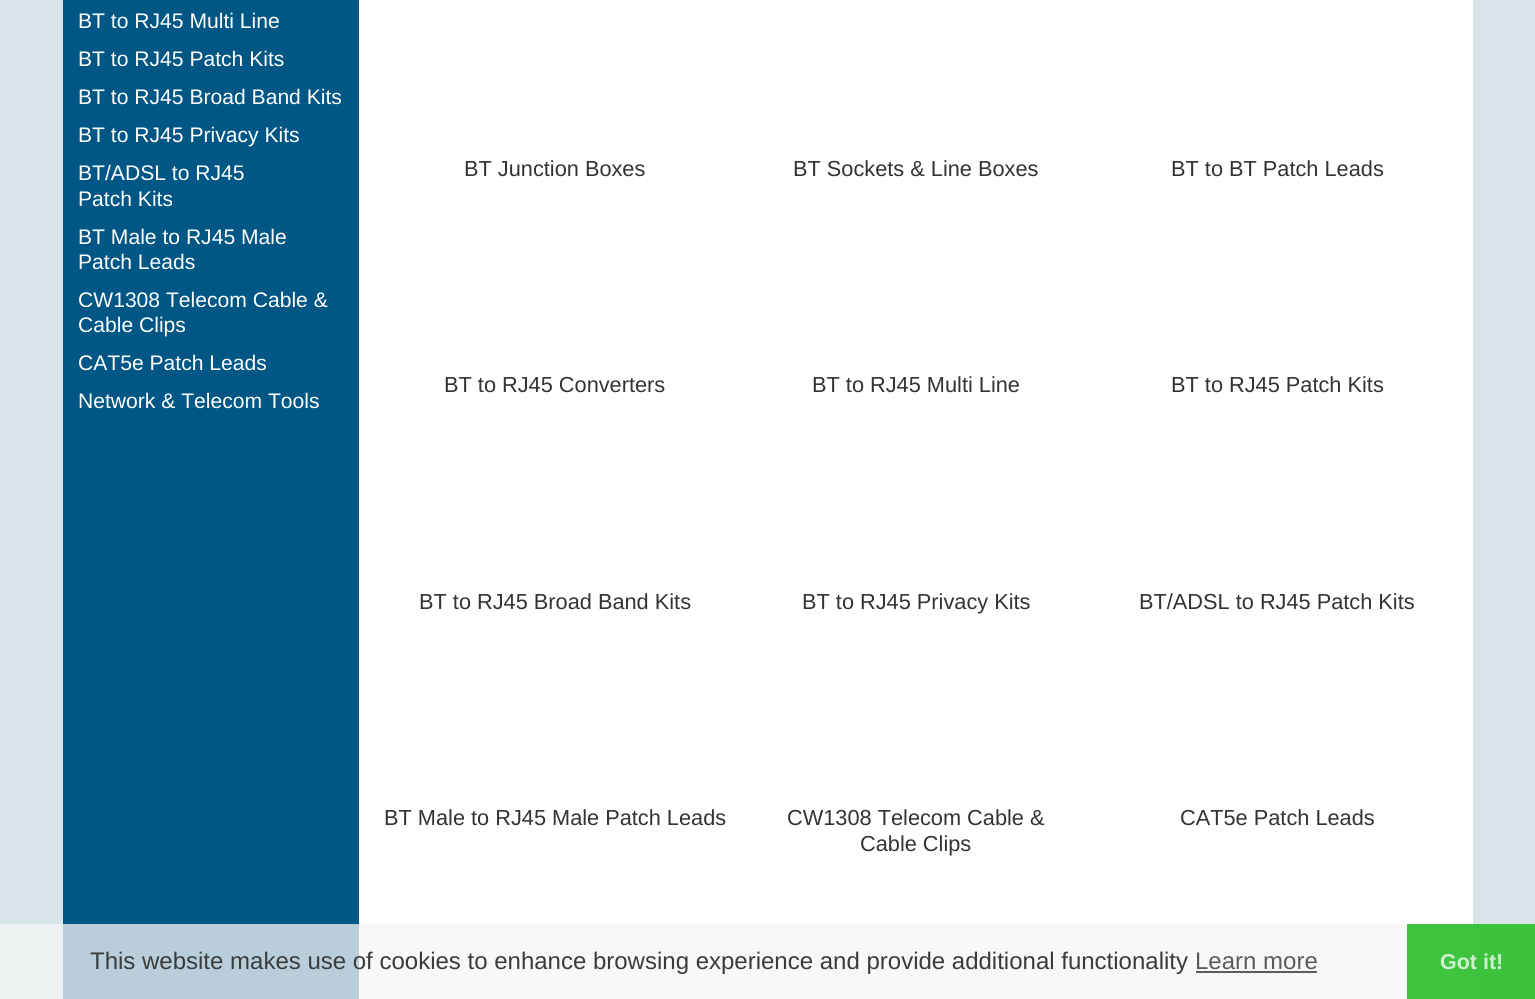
import math
import cairo

surface = cairo.ImageSurface(cairo.Format.RGB24, 1535, 999)
ctx = cairo.Context(surface)
options = cairo.FontOptions()
options.set_hint_metrics(cairo.HintMetrics.OFF)
options.set_hint_style(cairo.HintStyle.NONE)
ctx.set_font_options(options)
ctx.set_miter_limit(4)


def ink(r, g, b):
    ctx.set_source_rgb(r / 255, g / 255, b / 255)


def write(x, y, s, family, size, color, bold=False, italic=False):
    ctx.select_font_face(family, cairo.FontSlant.ITALIC if italic else cairo.FontSlant.NORMAL, cairo.FontWeight.BOLD if bold else cairo.FontWeight.NORMAL)
    ctx.set_font_size(size)
    ink(*color)
    ctx.move_to(x, y)
    ctx.show_text(s)


def block(x, y, w, h, *color):
    ink(*color)
    ctx.rectangle(x, y, w, h)
    ctx.fill()


s1 = dict(family="Liberation Sans", size=21.1, color=(255, 255, 255))
s2 = dict(family="Liberation Sans", size=21.75, color=(51, 51, 51))
s3 = dict(family="Liberation Sans", size=24, color=(58, 60, 60))
s4 = dict(family="Liberation Sans", size=24, color=(92, 92, 92))
s5 = dict(family="Liberation Sans", size=21.5, color=(206, 240, 207), bold=True)

ink(216, 228, 232)
ctx.paint()
block(0, 924, 63, 75, 239, 242, 243)
block(1473, 924, 62, 75, 60, 194, 61)
block(63, 0, 296, 924, 0, 87, 133)
block(63, 924, 296, 75, 185, 206, 218)
write(78, 28, "BT to RJ45 Multi Line", **s1)
write(78, 66, "BT to RJ45 Patch Kits", **s1)
write(78, 104, "BT to RJ45 Broad Band Kits", **s1)
write(78, 142, "BT to RJ45 Privacy Kits", **s1)
write(78, 180, "BT/ADSL to RJ45", **s1)
write(78, 206, "Patch Kits", **s1)
write(78, 244, "BT Male to RJ45 Male", **s1)
write(78, 269, "Patch Leads", **s1)
write(78, 307, "CW1308 Telecom Cable &", **s1)
write(78, 332, "Cable Clips", **s1)
write(78, 370, "CAT5e Patch Leads", **s1)
write(78, 408, "Network & Telecom Tools", **s1)
block(359, 0, 1114, 924, 255, 255, 255)
block(359, 924, 1048, 75, 248, 248, 248)
block(1407, 924, 66, 75, 62, 196, 62)
write(464, 176, "BT Junction Boxes", **s2)
write(793, 176, "BT Sockets & Line Boxes", **s2)
write(1171, 176, "BT to BT Patch Leads", **s2)
write(444, 392, "BT to RJ45 Converters", **s2)
write(812, 392, "BT to RJ45 Multi Line", **s2)
write(1171, 392, "BT to RJ45 Patch Kits", **s2)
write(419, 609, "BT to RJ45 Broad Band Kits", **s2)
write(802, 609, "BT to RJ45 Privacy Kits", **s2)
write(1139, 609, "BT/ADSL to RJ45 Patch Kits", **s2)
write(384, 825, "BT Male to RJ45 Male Patch Leads", **s2)
write(787, 825, "CW1308 Telecom Cable &", **s2)
write(860, 851, "Cable Clips", **s2)
write(1180, 825, "CAT5e Patch Leads", **s2)
write(90, 969, "This website makes use of cookies to enhance browsing experience and provide additional functionality", **s3)
write(1195, 969, "Learn more", **s4)
block(1196, 971, 121, 2, 92, 92, 92)
write(1440, 969, "Got it!", **s5)
surface.write_to_png("screenshot.png")
